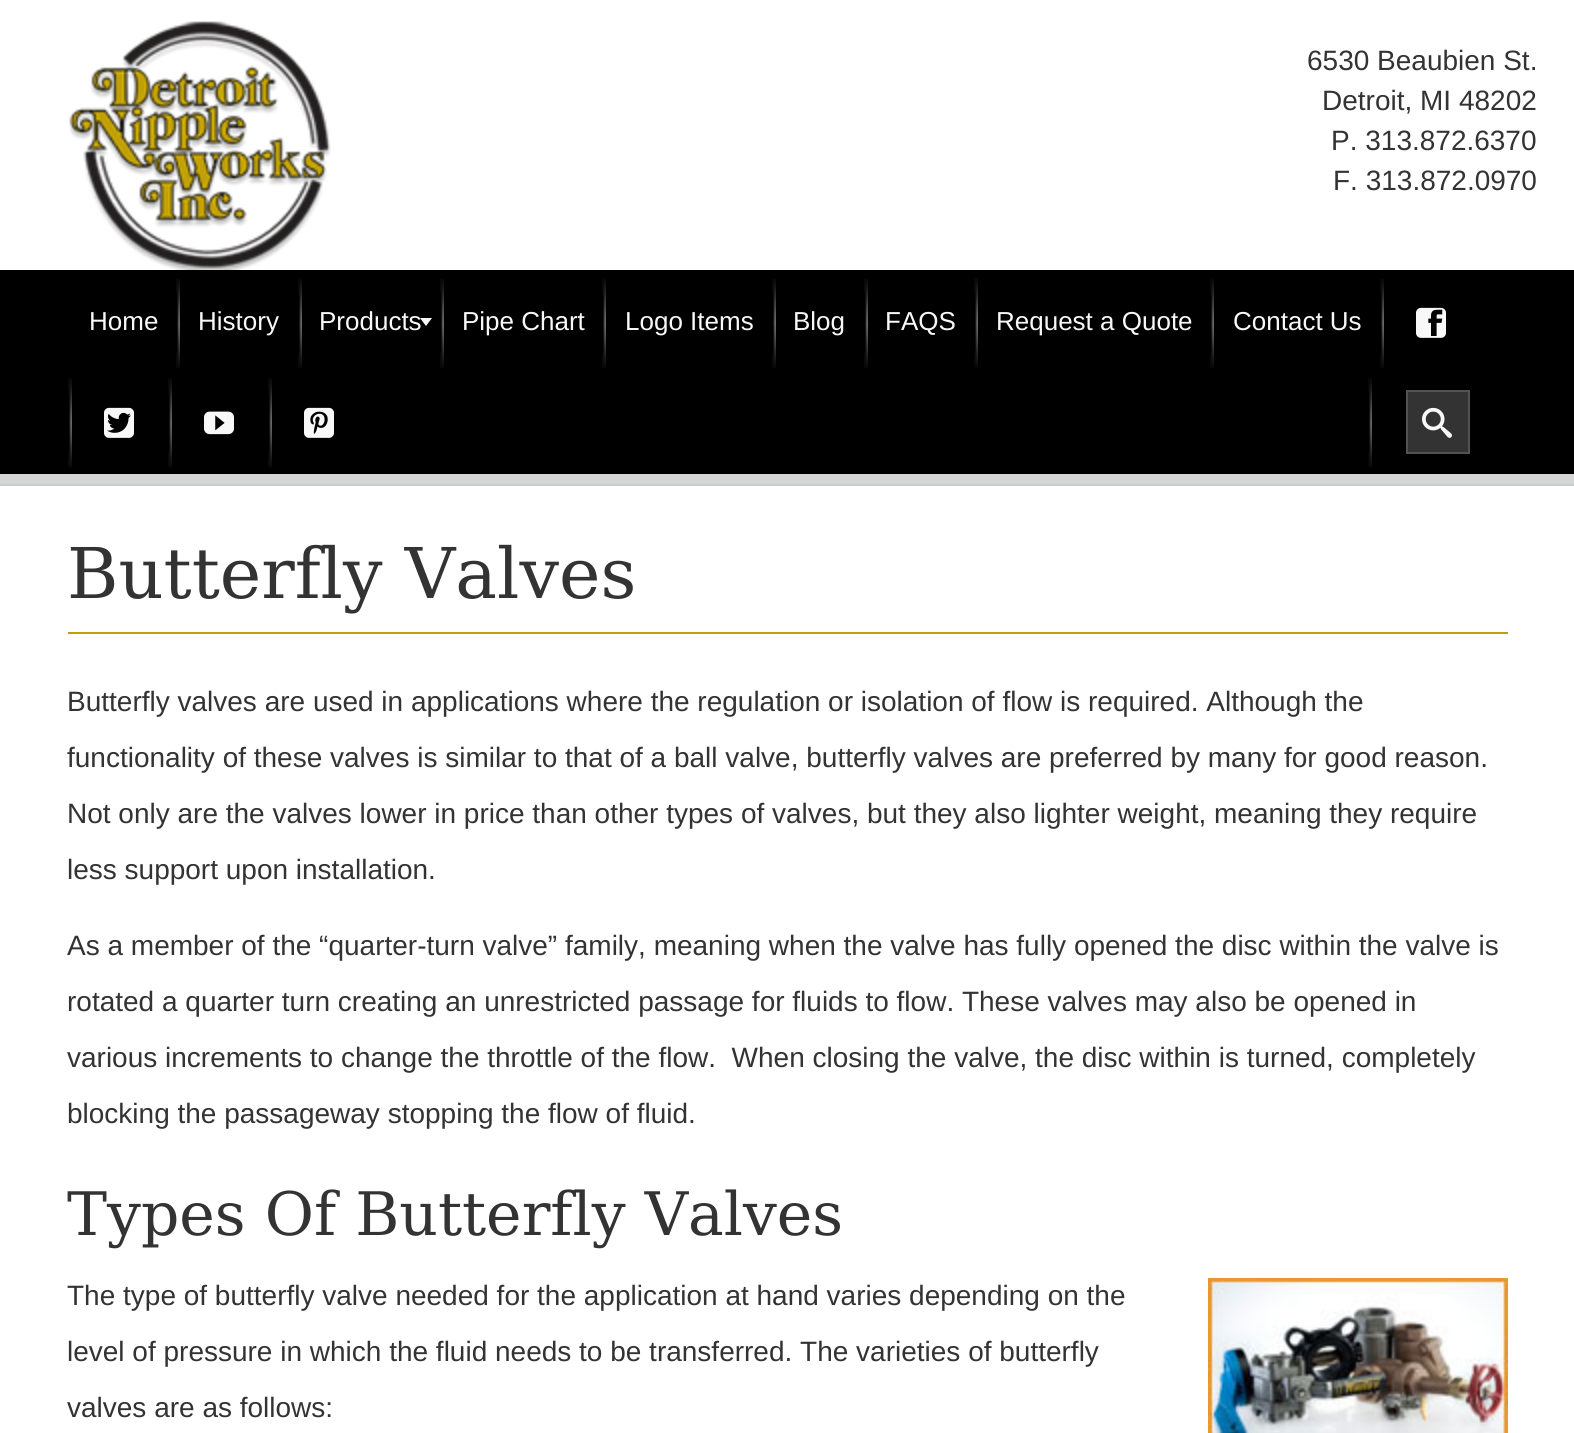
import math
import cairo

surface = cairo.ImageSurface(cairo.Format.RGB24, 1574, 1433)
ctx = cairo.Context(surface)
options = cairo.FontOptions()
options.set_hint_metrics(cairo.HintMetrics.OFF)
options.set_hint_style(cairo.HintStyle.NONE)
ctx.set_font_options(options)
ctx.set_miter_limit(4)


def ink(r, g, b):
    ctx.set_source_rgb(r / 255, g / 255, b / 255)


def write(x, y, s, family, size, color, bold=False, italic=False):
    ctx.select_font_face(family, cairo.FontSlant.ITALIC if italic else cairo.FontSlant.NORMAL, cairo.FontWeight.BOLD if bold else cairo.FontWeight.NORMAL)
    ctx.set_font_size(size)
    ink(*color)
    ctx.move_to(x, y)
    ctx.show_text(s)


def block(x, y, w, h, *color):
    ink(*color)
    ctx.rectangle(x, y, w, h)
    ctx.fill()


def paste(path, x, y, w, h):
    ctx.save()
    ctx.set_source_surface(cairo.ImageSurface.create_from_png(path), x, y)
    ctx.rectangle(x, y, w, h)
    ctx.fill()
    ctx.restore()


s1 = dict(family="Liberation Sans", size=28, color=(51, 51, 51))
s2 = dict(family="Liberation Sans", size=26, color=(248, 248, 248))
s3 = dict(family="DejaVu Serif", size=70, color=(51, 51, 51))
s4 = dict(family="DejaVu Serif", size=60, color=(51, 51, 51))

ink(255, 255, 255)
ctx.paint()
paste("pic1.png", 69, 21, 262, 249)
write(1307, 70, "6530 Beaubien St.", **s1)
write(1322, 110, "Detroit, MI 48202", **s1)
write(1331, 150, "P. 313.872.6370", **s1)
write(1333, 190, "F. 313.872.0970", **s1)
block(0, 270, 1574, 204, 0, 0, 0)
write(89, 330, "Home", **s2)
paste("pic2.png", 176, 278, 4, 90)
write(198, 330, "History", **s2)
paste("pic2.png", 298, 278, 4, 90)
write(319, 330, "Products", **s2)
ctx.new_path()
ctx.move_to(420, 318)
ctx.line_to(432, 318)
ctx.line_to(426, 326)
ctx.close_path()
ctx.fill()
paste("pic2.png", 440, 278, 4, 90)
write(462, 330, "Pipe Chart", **s2)
paste("pic2.png", 602, 278, 4, 90)
write(625, 330, "Logo Items", **s2)
paste("pic2.png", 772, 278, 4, 90)
write(793, 330, "Blog", **s2)
paste("pic2.png", 864, 278, 4, 90)
write(885, 330, "FAQS", **s2)
paste("pic2.png", 974, 278, 4, 90)
write(996, 330, "Request a Quote", **s2)
paste("pic2.png", 1210, 278, 4, 90)
write(1233, 330, "Contact Us", **s2)
paste("pic2.png", 1380, 278, 4, 90)
paste("pic3.png", 1416, 307, 30, 31)
paste("pic2.png", 68, 378, 4, 90)
paste("pic4.png", 104, 407, 30, 31)
paste("pic2.png", 168, 378, 4, 90)
paste("pic5.png", 204, 411, 30, 24)
paste("pic2.png", 268, 378, 4, 90)
paste("pic6.png", 304, 407, 30, 31)
paste("pic7.png", 1368, 378, 4, 90)
ink(51, 51, 51)
ctx.rectangle(1407, 391, 62, 62)
ctx.fill_preserve()
ink(82, 82, 82)
ctx.stroke()
paste("pic8.png", 1422, 407, 30, 31)
block(0, 474, 1574, 10, 213, 215, 215)
block(0, 484, 1574, 2, 204, 204, 204)
block(68, 632, 1440, 2, 191, 159, 7)
write(67, 598, "Butterfly Valves", **s3)
write(67, 711, "Butterfly valves are used in applications where the regulation or isolation of flow is required. Although the", **s1)
write(67, 767, "functionality of these valves is similar to that of a ball valve, butterfly valves are preferred by many for good reason.", **s1)
write(67, 823, "Not only are the valves lower in price than other types of valves, but they also lighter weight, meaning they require", **s1)
write(67, 879, "less support upon installation.", **s1)
write(67, 955, "As a member of the “quarter-turn valve” family, meaning when the valve has fully opened the disc within the valve is", **s1)
write(67, 1011, "rotated a quarter turn creating an unrestricted passage for fluids to flow. These valves may also be opened in", **s1)
write(67, 1067, "various increments to change the throttle of the flow.  When closing the valve, the disc within is turned, completely", **s1)
write(67, 1123, "blocking the passageway stopping the flow of fluid.", **s1)
write(67, 1235, "Types Of Butterfly Valves", **s4)
write(67, 1305, "The type of butterfly valve needed for the application at hand varies depending on the", **s1)
paste("pic9.png", 1208, 1278, 300, 155)
write(67, 1361, "level of pressure in which the fluid needs to be transferred. The varieties of butterfly", **s1)
write(67, 1417, "valves are as follows:", **s1)
surface.write_to_png("screenshot.png")
